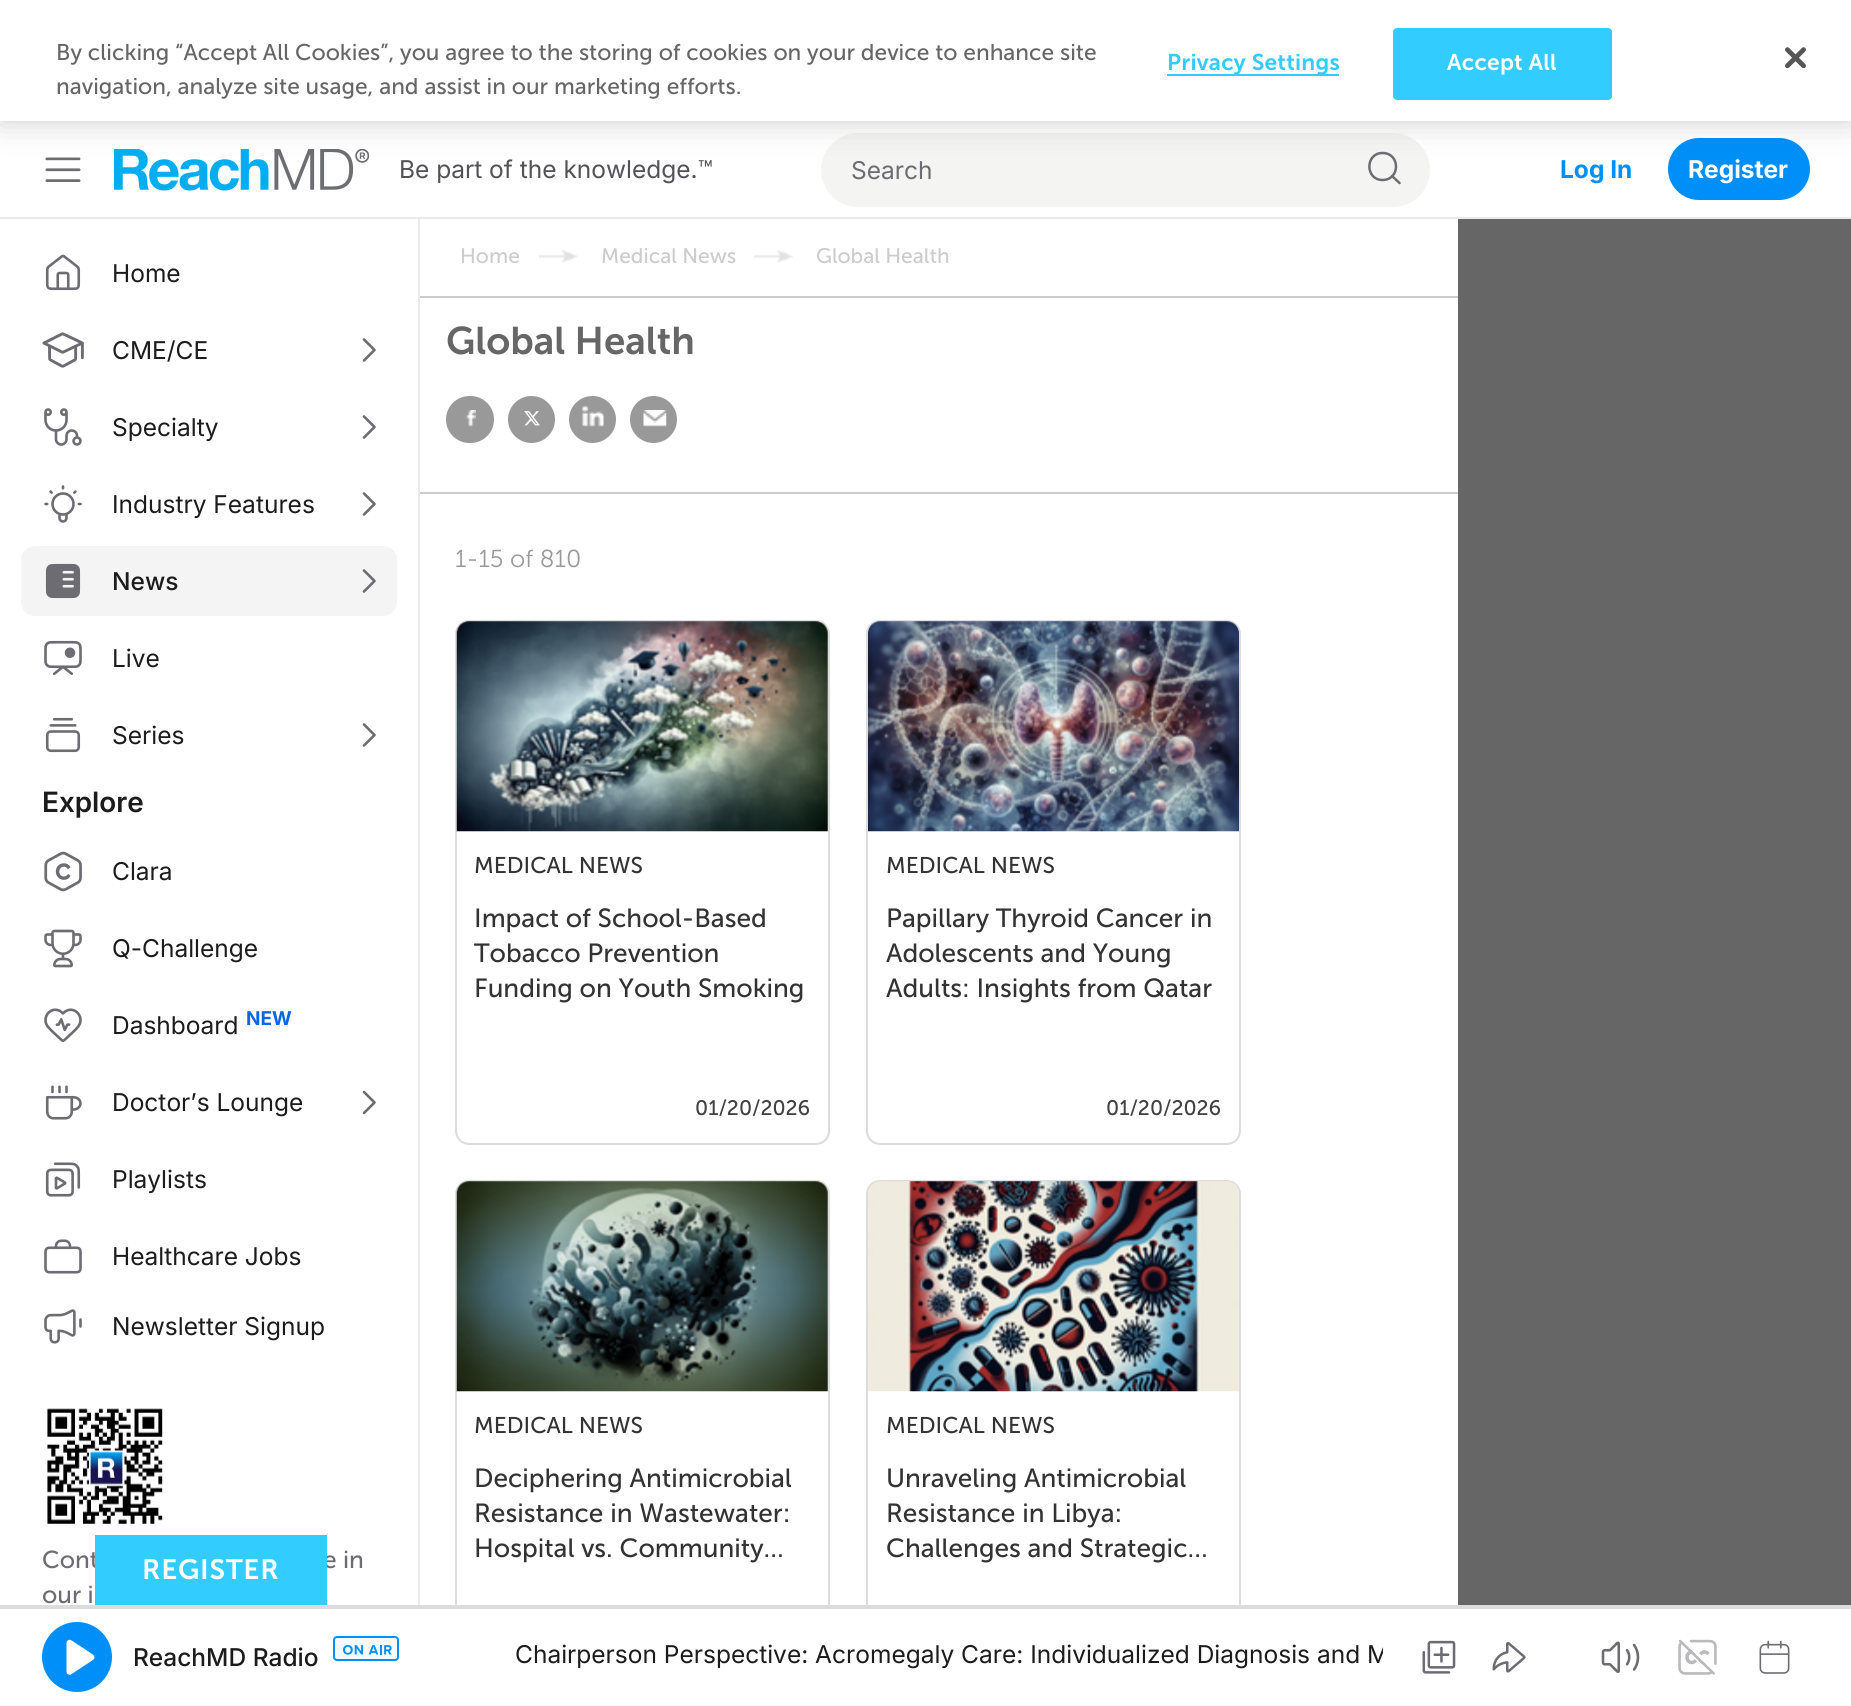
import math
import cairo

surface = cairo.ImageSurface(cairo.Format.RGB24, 1851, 1706)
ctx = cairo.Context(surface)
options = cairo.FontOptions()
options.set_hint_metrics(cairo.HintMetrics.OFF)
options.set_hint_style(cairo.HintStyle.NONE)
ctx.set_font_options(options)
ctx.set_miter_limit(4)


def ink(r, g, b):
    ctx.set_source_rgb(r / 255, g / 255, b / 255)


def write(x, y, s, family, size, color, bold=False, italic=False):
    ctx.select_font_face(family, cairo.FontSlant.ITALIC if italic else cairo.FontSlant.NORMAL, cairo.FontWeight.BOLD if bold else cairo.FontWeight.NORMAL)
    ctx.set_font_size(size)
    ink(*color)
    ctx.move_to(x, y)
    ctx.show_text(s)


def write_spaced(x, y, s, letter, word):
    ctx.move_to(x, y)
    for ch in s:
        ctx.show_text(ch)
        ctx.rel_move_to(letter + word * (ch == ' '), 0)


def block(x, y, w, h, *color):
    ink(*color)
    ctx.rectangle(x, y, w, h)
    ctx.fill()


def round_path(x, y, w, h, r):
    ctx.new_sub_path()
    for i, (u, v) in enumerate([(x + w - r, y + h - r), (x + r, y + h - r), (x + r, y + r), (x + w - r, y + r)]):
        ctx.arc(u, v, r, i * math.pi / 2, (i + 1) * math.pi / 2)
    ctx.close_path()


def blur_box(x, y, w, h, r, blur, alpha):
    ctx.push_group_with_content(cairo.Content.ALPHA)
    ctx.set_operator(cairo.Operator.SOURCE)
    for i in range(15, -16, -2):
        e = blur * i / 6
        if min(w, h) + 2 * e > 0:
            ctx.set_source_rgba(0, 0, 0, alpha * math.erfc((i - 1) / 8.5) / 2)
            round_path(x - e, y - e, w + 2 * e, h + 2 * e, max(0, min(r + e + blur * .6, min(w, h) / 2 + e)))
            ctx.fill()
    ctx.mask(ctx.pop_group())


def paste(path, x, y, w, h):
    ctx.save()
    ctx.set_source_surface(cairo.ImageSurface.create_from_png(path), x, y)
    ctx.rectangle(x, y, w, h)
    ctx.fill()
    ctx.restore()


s1 = dict(family="Museo Sans", size=22.75, color=(102, 102, 102))
s2 = dict(family="Inter", size=24.5, color=(82, 82, 87))
s3 = dict(family="Inter", size=24.5, color=(108, 108, 114))
s4 = dict(family="Inter", size=24.5, color=(0, 143, 248), bold=True)
s5 = dict(family="Inter", size=24.5, color=(255, 255, 255), bold=True)
s6 = dict(family="Inter", size=24.5, color=(28, 28, 28))
s7 = dict(family="Inter Medium", size=24.5, color=(28, 28, 28))
s8 = dict(family="Inter SemiBold", size=28, color=(28, 28, 28))
s9 = dict(family="Inter", size=19, color=(11, 102, 228), bold=True)
s10 = dict(family="Museo Sans", size=24.5, color=(108, 108, 114))
s11 = dict(family="Museo Sans", size=21, color=(204, 204, 204))
s12 = dict(family="Museo Sans SemiBold", size=38.5, color=(102, 102, 102))
s13 = dict(family="Museo Sans Light", size=24.5, color=(153, 153, 153))
s14 = dict(family="Museo Sans", size=22.75, color=(51, 51, 51))
s15 = dict(family="Museo Sans", size=26.25, color=(51, 51, 51))
s16 = dict(family="Museo Sans", size=21, color=(66, 66, 66))

ink(102, 102, 102)
ctx.paint()
block(0, 121, 1851, 96, 255, 255, 255)
paste("pic2.png", 45, 157, 36, 25)
paste("pic3.png", 114, 149, 255, 42)
ink(244, 244, 243)
ctx.new_path()
ctx.move_to(858, 133)
ctx.line_to(1346, 133)
ctx.line_to(1346, 207)
ctx.line_to(858, 207)
ctx.curve_to(837.5, 207, 821, 190.5, 821, 170)
ctx.curve_to(821, 149.5, 837.5, 133, 858, 133)
ctx.close_path()
ctx.fill()
ctx.new_path()
ctx.move_to(1346, 133)
ctx.line_to(1393, 133)
ctx.curve_to(1413.5, 133, 1430, 149.5, 1430, 170)
ctx.curve_to(1430, 190.5, 1413.5, 207, 1393, 207)
ctx.line_to(1346, 207)
ctx.close_path()
ctx.fill()
ctx.new_path()
ctx.move_to(1382.5, 180)
ctx.curve_to(1400.5, 180, 1400.5, 153, 1382.5, 153)
ctx.curve_to(1365, 153, 1365, 180, 1382.5, 180)
ctx.close_path()
ctx.move_to(1399.5, 183)
ctx.line_to(1392, 176)
ink(108, 108, 114)
ctx.set_line_width(2.5)
ctx.set_line_cap(cairo.LineCap.ROUND)
ctx.set_line_join(cairo.LineJoin.ROUND)
ctx.stroke()
ink(0, 143, 248)
round_path(1668, 138, 142, 62, 31)
ctx.fill()
ink(0, 0, 0)
blur_box(0, 0, 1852, 121, 0, 16, 0.2)
block(0, 0, 1851, 121, 255, 255, 255)
write(56, 60, "By clicking “Accept All Cookies”, you agree to the storing of cookies on your device to enhance site", **s1)
write(56, 94, "navigation, analyze site usage, and assist in our marketing efforts.", **s1)
block(1167, 74, 172, 2, 51, 204, 255)
ctx.select_font_face("Museo Sans SemiBold")
write_spaced(1167, 70, "Privacy Settings", 0.25, 0)
round_path(1394, 29, 217, 70, 3)
ctx.fill_preserve()
ctx.set_line_width(2)
ctx.set_line_cap(cairo.LineCap.BUTT)
ctx.set_line_join(cairo.LineJoin.MITER)
ctx.stroke()
ink(255, 255, 255)
write_spaced(1447, 70, "Accept All", 0.25, 0)
paste("pic1.png", 1785, 47, 21, 21)
block(418, 217, 2, 1388, 234, 234, 234)
block(0, 217, 1851, 2, 234, 234, 234)
write(399, 178, "Be part of the knowledge.™", **s2)
write(851, 179, "Search", **s3)
write(1560, 178, "Log In", **s4)
write(1688, 178, "Register", **s5)
block(0, 219, 418, 1386, 255, 255, 255)
paste("pic4.png", 45, 254, 36, 37)
write(112, 282, "Home", **s6)
paste("pic5.png", 42, 332, 42, 36)
write(112, 359, "CME/CE", **s6)
ctx.new_path()
ctx.move_to(364, 360.5)
ctx.line_to(374.5, 350)
ctx.line_to(364, 339.5)
ink(108, 108, 114)
ctx.set_line_width(2.6)
ctx.set_line_cap(cairo.LineCap.ROUND)
ctx.set_line_join(cairo.LineJoin.ROUND)
ctx.stroke()
paste("pic6.png", 44, 408, 38, 38)
write(112, 436, "Specialty", **s6)
ctx.new_path()
ctx.move_to(364, 437.5)
ctx.line_to(374.5, 427)
ctx.line_to(364, 416.5)
ink(108, 108, 114)
ctx.stroke()
paste("pic7.png", 44, 485, 38, 38)
write(112, 513, "Industry Features", **s6)
ctx.new_path()
ctx.move_to(364, 514.5)
ctx.line_to(374.5, 504)
ctx.line_to(364, 493.5)
ink(108, 108, 114)
ctx.stroke()
ink(244, 244, 244)
round_path(21, 546, 376, 70, 14)
ctx.fill()
paste("pic8.png", 45, 563, 36, 36)
write(112, 590, "News", **s7)
ctx.new_path()
ctx.move_to(364, 591.5)
ctx.line_to(374.5, 581)
ctx.line_to(364, 570.5)
ink(108, 108, 114)
ctx.stroke()
paste("pic9.png", 44, 640, 38, 35)
write(112, 667, "Live", **s6)
paste("pic10.png", 45, 717, 36, 36)
write(112, 744, "Series", **s6)
ctx.new_path()
ctx.move_to(364, 745.5)
ctx.line_to(374.5, 735)
ctx.line_to(364, 724.5)
ink(108, 108, 114)
ctx.stroke()
write(42, 812, "Explore", **s8)
paste("pic11.png", 44, 851, 38, 41)
write(112, 880, "Clara", **s6)
paste("pic12.png", 44, 929, 38, 39)
write(112, 957, "Q-Challenge", **s6)
paste("pic13.png", 44, 1008, 38, 34)
write(112, 1034, "Dashboard", **s6)
write(246, 1025, "NEW", **s9)
paste("pic14.png", 45, 1085, 37, 35)
write(112, 1111, "Doctor’s Lounge", **s6)
ctx.new_path()
ctx.move_to(364, 1113)
ctx.line_to(374.5, 1102.5)
ctx.line_to(364, 1092)
ink(108, 108, 114)
ctx.stroke()
paste("pic15.png", 45, 1162, 36, 35)
write(112, 1188, "Playlists", **s6)
paste("pic16.png", 44, 1239, 38, 35)
write(112, 1265, "Healthcare Jobs", **s6)
paste("pic17.png", 44, 1309, 38, 35)
write(112, 1335, "Newsletter Signup", **s6)
paste("pic18.png", 47, 1408, 116, 116)
write(42, 1568, "Cont", **s10)
write(323, 1568, "e in", **s10)
write(42, 1603, "our i", **s10)
block(420, 219, 1038, 1386, 255, 255, 255)
block(420, 296, 1038, 2, 204, 204, 204)
write(460, 263, "Home", **s11)
paste("pic19.png", 539, 250, 39, 13)
write(601, 263, "Medical News", **s11)
paste("pic20.png", 754, 250, 39, 13)
write(816, 263, "Global Health", **s11)
block(420, 492, 1038, 2, 204, 204, 204)
write(446, 354, "Global Health", **s12)
ink(153, 153, 153)
round_path(446, 396, 48, 47, 23.5)
ctx.fill()
paste("pic21.png", 466, 410, 10, 17)
ctx.arc(531.5, 419.5, 23.5, 0, 2 * math.pi)
ctx.fill()
paste("pic22.png", 524, 411, 16, 15)
ctx.arc(592.5, 419.5, 23.5, 0, 2 * math.pi)
ctx.fill()
paste("pic23.png", 582, 406, 22, 21)
ctx.arc(653.5, 419.5, 23.5, 0, 2 * math.pi)
ctx.fill()
paste("pic24.png", 643, 410, 24, 17)
write(455, 567, "1-15 of 810", **s13)
round_path(456, 621, 373, 523, 13)
ink(220, 220, 220)
ctx.set_line_width(2)
ctx.set_line_cap(cairo.LineCap.BUTT)
ctx.set_line_join(cairo.LineJoin.MITER)
ctx.stroke()
paste("pic25.png", 456, 621, 372, 211)
write(474, 873, "MEDICAL NEWS", **s14)
write(474, 927, "Impact of School-Based", **s15)
write(474, 962, "Tobacco Prevention", **s15)
write(474, 997, "Funding on Youth Smoking", **s15)
write(695, 1115, "01/20/2026", **s16)
round_path(867, 621, 373, 523, 13)
ink(220, 220, 220)
ctx.stroke()
paste("pic26.png", 868, 621, 371, 211)
write(886, 873, "MEDICAL NEWS", **s14)
write(886, 927, "Papillary Thyroid Cancer in", **s15)
write(886, 962, "Adolescents and Young", **s15)
write(886, 997, "Adults: Insights from Qatar", **s15)
write(1106, 1115, "01/20/2026", **s16)
round_path(456, 1181, 373, 523, 13)
ink(220, 220, 220)
ctx.stroke()
paste("pic27.png", 456, 1181, 372, 211)
write(474, 1433, "MEDICAL NEWS", **s14)
write(474, 1487, "Deciphering Antimicrobial", **s15)
write(474, 1522, "Resistance in Wastewater:", **s15)
write(474, 1557, "Hospital vs. Community…", **s15)
round_path(867, 1181, 373, 523, 13)
ink(220, 220, 220)
ctx.stroke()
paste("pic28.png", 868, 1181, 371, 211)
write(886, 1433, "MEDICAL NEWS", **s14)
write(886, 1487, "Unraveling Antimicrobial", **s15)
write(886, 1522, "Resistance in Libya:", **s15)
write(886, 1557, "Challenges and Strategic…", **s15)
block(95, 1535, 232, 70, 51, 204, 255)
ctx.select_font_face("Museo Sans SemiBold")
ctx.set_font_size(28)
ink(255, 255, 255)
write_spaced(142, 1579, "REGISTER", 0.75, 0)
block(0, 1609, 1851, 97, 255, 255, 255)
block(0, 1605, 1851, 4, 220, 220, 220)
ink(0, 143, 248)
ctx.new_path()
ctx.arc(77, 1657, 35, 0, 2 * math.pi)
ctx.fill()
paste("pic29.png", 66, 1639, 29, 36)
write(133, 1666, "ReachMD Radio", **s7)
ink(244, 250, 255)
round_path(334, 1637, 64, 23, 3)
ctx.fill_preserve()
ink(0, 143, 248)
ctx.stroke()
paste("pic30.png", 343, 1645, 49, 10)
ctx.save()
ctx.rectangle(441, 1636, 942, 39)
ctx.clip()
write(515, 1663, "Chairperson Perspective: Acromegaly Care: Individualized Diagnosis and M", **s6)
ctx.restore()
paste("pic31.png", 1422, 1640, 34, 34)
paste("pic32.png", 1492, 1641, 34, 32)
paste("pic33.png", 1601, 1641, 39, 32)
paste("pic34.png", 1678, 1639, 39, 36)
paste("pic35.png", 1759, 1640, 31, 34)
surface.write_to_png("screenshot.png")
